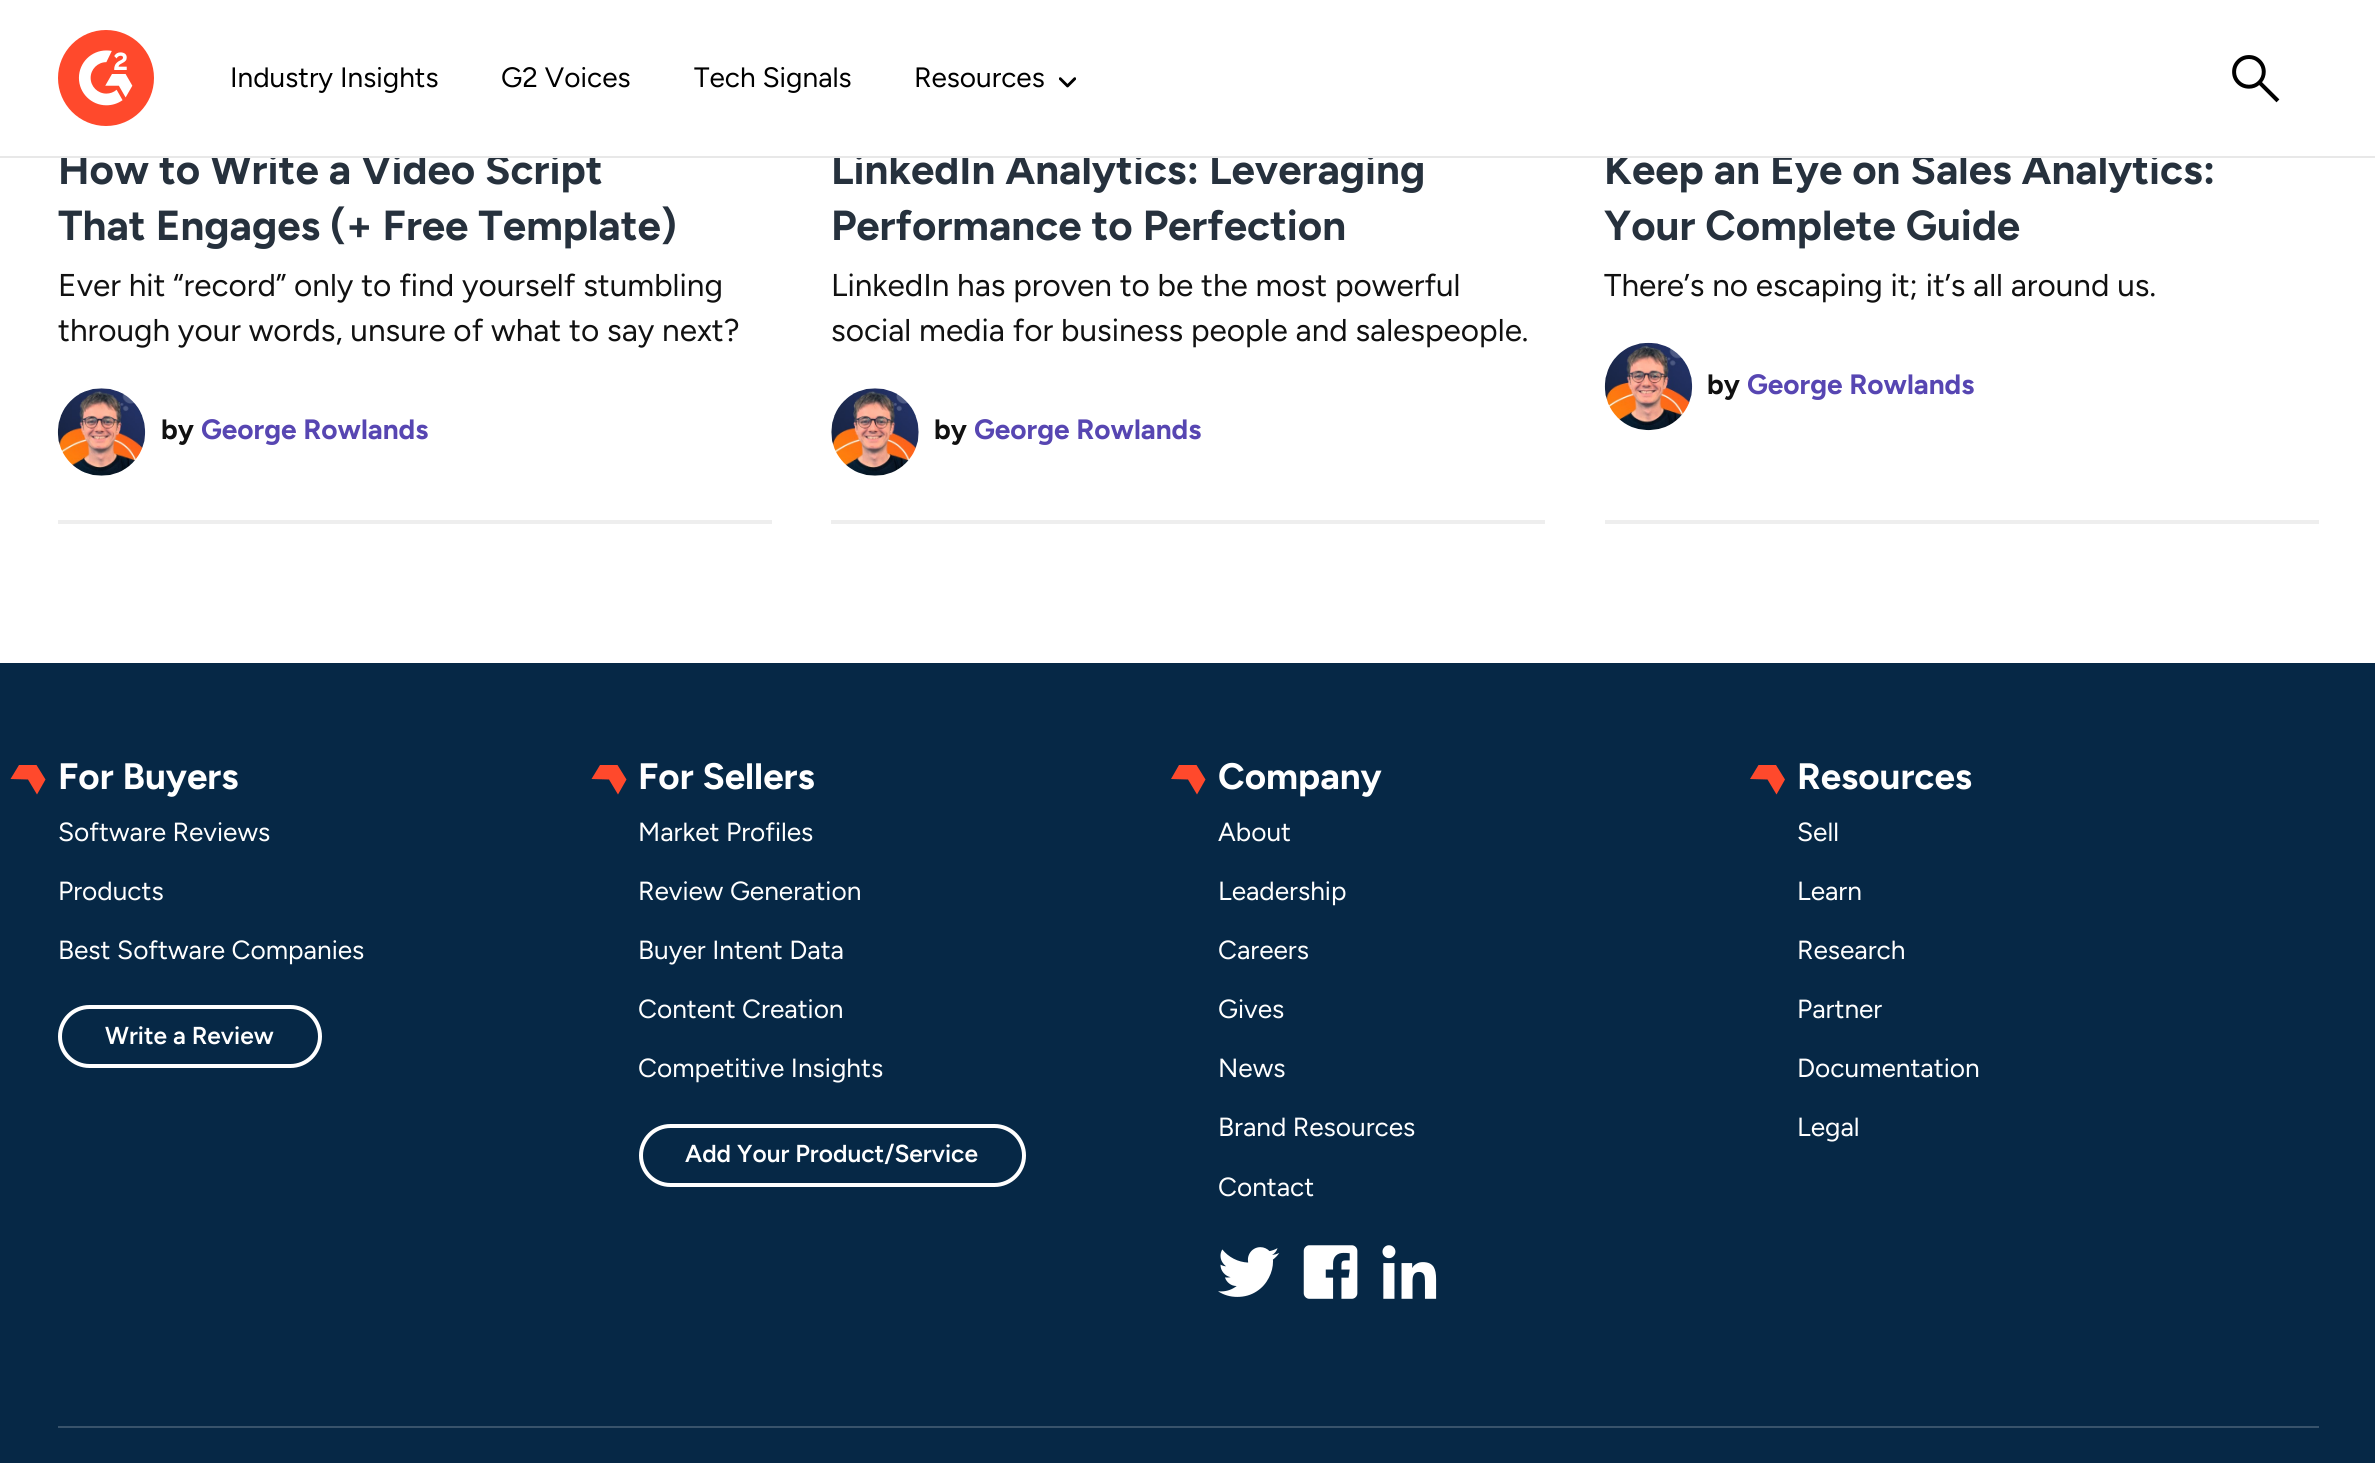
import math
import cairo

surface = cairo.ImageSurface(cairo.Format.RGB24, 2375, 1463)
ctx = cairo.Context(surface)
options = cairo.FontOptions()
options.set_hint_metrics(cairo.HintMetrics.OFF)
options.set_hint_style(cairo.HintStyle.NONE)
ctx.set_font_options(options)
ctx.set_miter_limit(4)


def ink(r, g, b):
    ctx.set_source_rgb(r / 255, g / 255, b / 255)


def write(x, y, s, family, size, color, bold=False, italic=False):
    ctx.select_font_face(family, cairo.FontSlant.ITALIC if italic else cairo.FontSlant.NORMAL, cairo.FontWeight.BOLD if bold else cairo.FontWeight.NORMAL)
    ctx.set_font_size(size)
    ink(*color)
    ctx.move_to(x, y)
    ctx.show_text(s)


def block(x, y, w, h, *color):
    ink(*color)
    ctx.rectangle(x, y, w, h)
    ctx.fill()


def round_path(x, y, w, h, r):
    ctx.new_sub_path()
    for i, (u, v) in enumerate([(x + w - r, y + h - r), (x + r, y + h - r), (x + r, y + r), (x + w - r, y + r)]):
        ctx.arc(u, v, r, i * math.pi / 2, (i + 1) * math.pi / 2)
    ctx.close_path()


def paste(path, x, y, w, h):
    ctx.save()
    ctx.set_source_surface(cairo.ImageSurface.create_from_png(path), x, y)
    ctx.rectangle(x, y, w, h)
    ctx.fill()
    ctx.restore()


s1 = dict(family="Figtree", size=42, color=(38, 49, 61), bold=True)
s2 = dict(family="Figtree", size=28, color=(0, 0, 0))
s3 = dict(family="Figtree", size=31.5, color=(17, 17, 17))
s4 = dict(family="Figtree", size=28, color=(17, 17, 17), bold=True)
s5 = dict(family="Figtree", size=28, color=(87, 70, 178), bold=True)
s6 = dict(family="Figtree", size=36.75, color=(255, 255, 255), bold=True)
s7 = dict(family="Figtree", size=26.25, color=(255, 255, 255))
s8 = dict(family="Figtree SemiBold", size=24.5, color=(255, 255, 255))

ink(255, 255, 255)
ctx.paint()
write(58, 184, "How to Write a Video Script", **s1)
write(831, 184, "LinkedIn Analytics: Leveraging", **s1)
write(1604, 184, "Keep an Eye on Sales Analytics:", **s1)
block(61, 153, 2097, 3, 255, 255, 255)
block(0, 156, 2375, 2, 232, 232, 232)
paste("pic1.png", 58, 30, 96, 96)
write(230, 87, "Industry Insights", **s2)
write(501, 87, "G2 Voices", **s2)
write(694, 87, "Tech Signals", **s2)
write(914, 87, "Resources", **s2)
paste("pic2.png", 1059, 77, 17, 11)
paste("pic3.png", 2232, 55, 48, 48)
block(58, 520, 714, 4, 238, 238, 238)
write(58, 240, "That Engages (+ Free Template)", **s1)
write(58, 296, "Ever hit “record” only to find yourself stumbling", **s3)
write(58, 341, "through your words, unsure of what to say next?", **s3)
paste("pic4.png", 57, 388, 89, 88)
write(161, 439, "by", **s4)
write(201, 439, "George Rowlands", **s5)
block(831, 520, 714, 4, 238, 238, 238)
write(831, 240, "Performance to Perfection", **s1)
write(831, 296, "LinkedIn has proven to be the most powerful", **s3)
write(831, 341, "social media for business people and salespeople.", **s3)
paste("pic5.png", 831, 388, 88, 88)
write(934, 439, "by", **s4)
write(974, 439, "George Rowlands", **s5)
block(1605, 520, 714, 4, 238, 238, 238)
write(1604, 240, "Your Complete Guide", **s1)
write(1604, 296, "There’s no escaping it; it’s all around us.", **s3)
paste("pic6.png", 1604, 342, 89, 89)
write(1707, 394, "by", **s4)
write(1747, 394, "George Rowlands", **s5)
block(0, 663, 2375, 800, 6, 40, 70)
ink(255, 73, 44)
ctx.new_path()
ctx.move_to(36.5, 765)
ctx.line_to(19, 765)
ctx.line_to(10.5, 779)
ctx.line_to(28, 779.5)
ctx.line_to(37, 794.5)
ctx.line_to(45.5, 779.5)
ctx.close_path()
ctx.fill()
write(58, 789, "For Buyers", **s6)
write(58, 841, "Software Reviews", **s7)
write(58, 900, "Products", **s7)
write(58, 959, "Best Software Companies", **s7)
round_path(60, 1007, 260, 59, 29.5)
ctx.set_line_width(4)
ctx.stroke()
write(105, 1044, "Write a Review", **s8)
ink(255, 73, 44)
ctx.new_path()
ctx.move_to(617.5, 765)
ctx.line_to(600, 765)
ctx.line_to(591.5, 779)
ctx.line_to(609, 779.5)
ctx.line_to(618, 794.5)
ctx.line_to(626.5, 779.5)
ctx.close_path()
ctx.fill()
write(638, 789, "For Sellers", **s6)
write(638, 841, "Market Profiles", **s7)
write(638, 900, "Review Generation", **s7)
write(638, 959, "Buyer Intent Data", **s7)
write(638, 1018, "Content Creation", **s7)
write(638, 1077, "Competitive Insights", **s7)
round_path(641, 1126, 383, 59, 29.5)
ctx.stroke()
write(685, 1162, "Add Your Product/Service", **s8)
ink(255, 73, 44)
ctx.new_path()
ctx.move_to(1196.5, 765)
ctx.line_to(1179, 765)
ctx.line_to(1171, 779)
ctx.line_to(1188, 779.5)
ctx.line_to(1197, 794.5)
ctx.line_to(1205.5, 779.5)
ctx.close_path()
ctx.fill()
write(1218, 789, "Company", **s6)
write(1218, 841, "About", **s7)
write(1218, 900, "Leadership", **s7)
write(1218, 959, "Careers", **s7)
write(1218, 1018, "Gives", **s7)
write(1218, 1077, "News", **s7)
write(1218, 1136, "Brand Resources", **s7)
write(1218, 1196, "Contact", **s7)
paste("pic7.png", 1218, 1247, 62, 50)
paste("pic8.png", 1303, 1245, 55, 54)
paste("pic9.png", 1382, 1245, 55, 54)
ink(255, 73, 44)
ctx.new_path()
ctx.move_to(1776, 765)
ctx.line_to(1758.5, 765)
ctx.line_to(1750, 779)
ctx.line_to(1767.5, 779.5)
ctx.line_to(1776.5, 794.5)
ctx.line_to(1785, 779.5)
ctx.close_path()
ctx.fill()
write(1797, 789, "Resources", **s6)
write(1797, 841, "Sell", **s7)
write(1797, 900, "Learn", **s7)
write(1797, 959, "Research", **s7)
write(1797, 1018, "Partner", **s7)
write(1797, 1077, "Documentation", **s7)
write(1797, 1136, "Legal", **s7)
block(58, 1426, 2261, 2, 56, 83, 107)
surface.write_to_png("screenshot.png")
